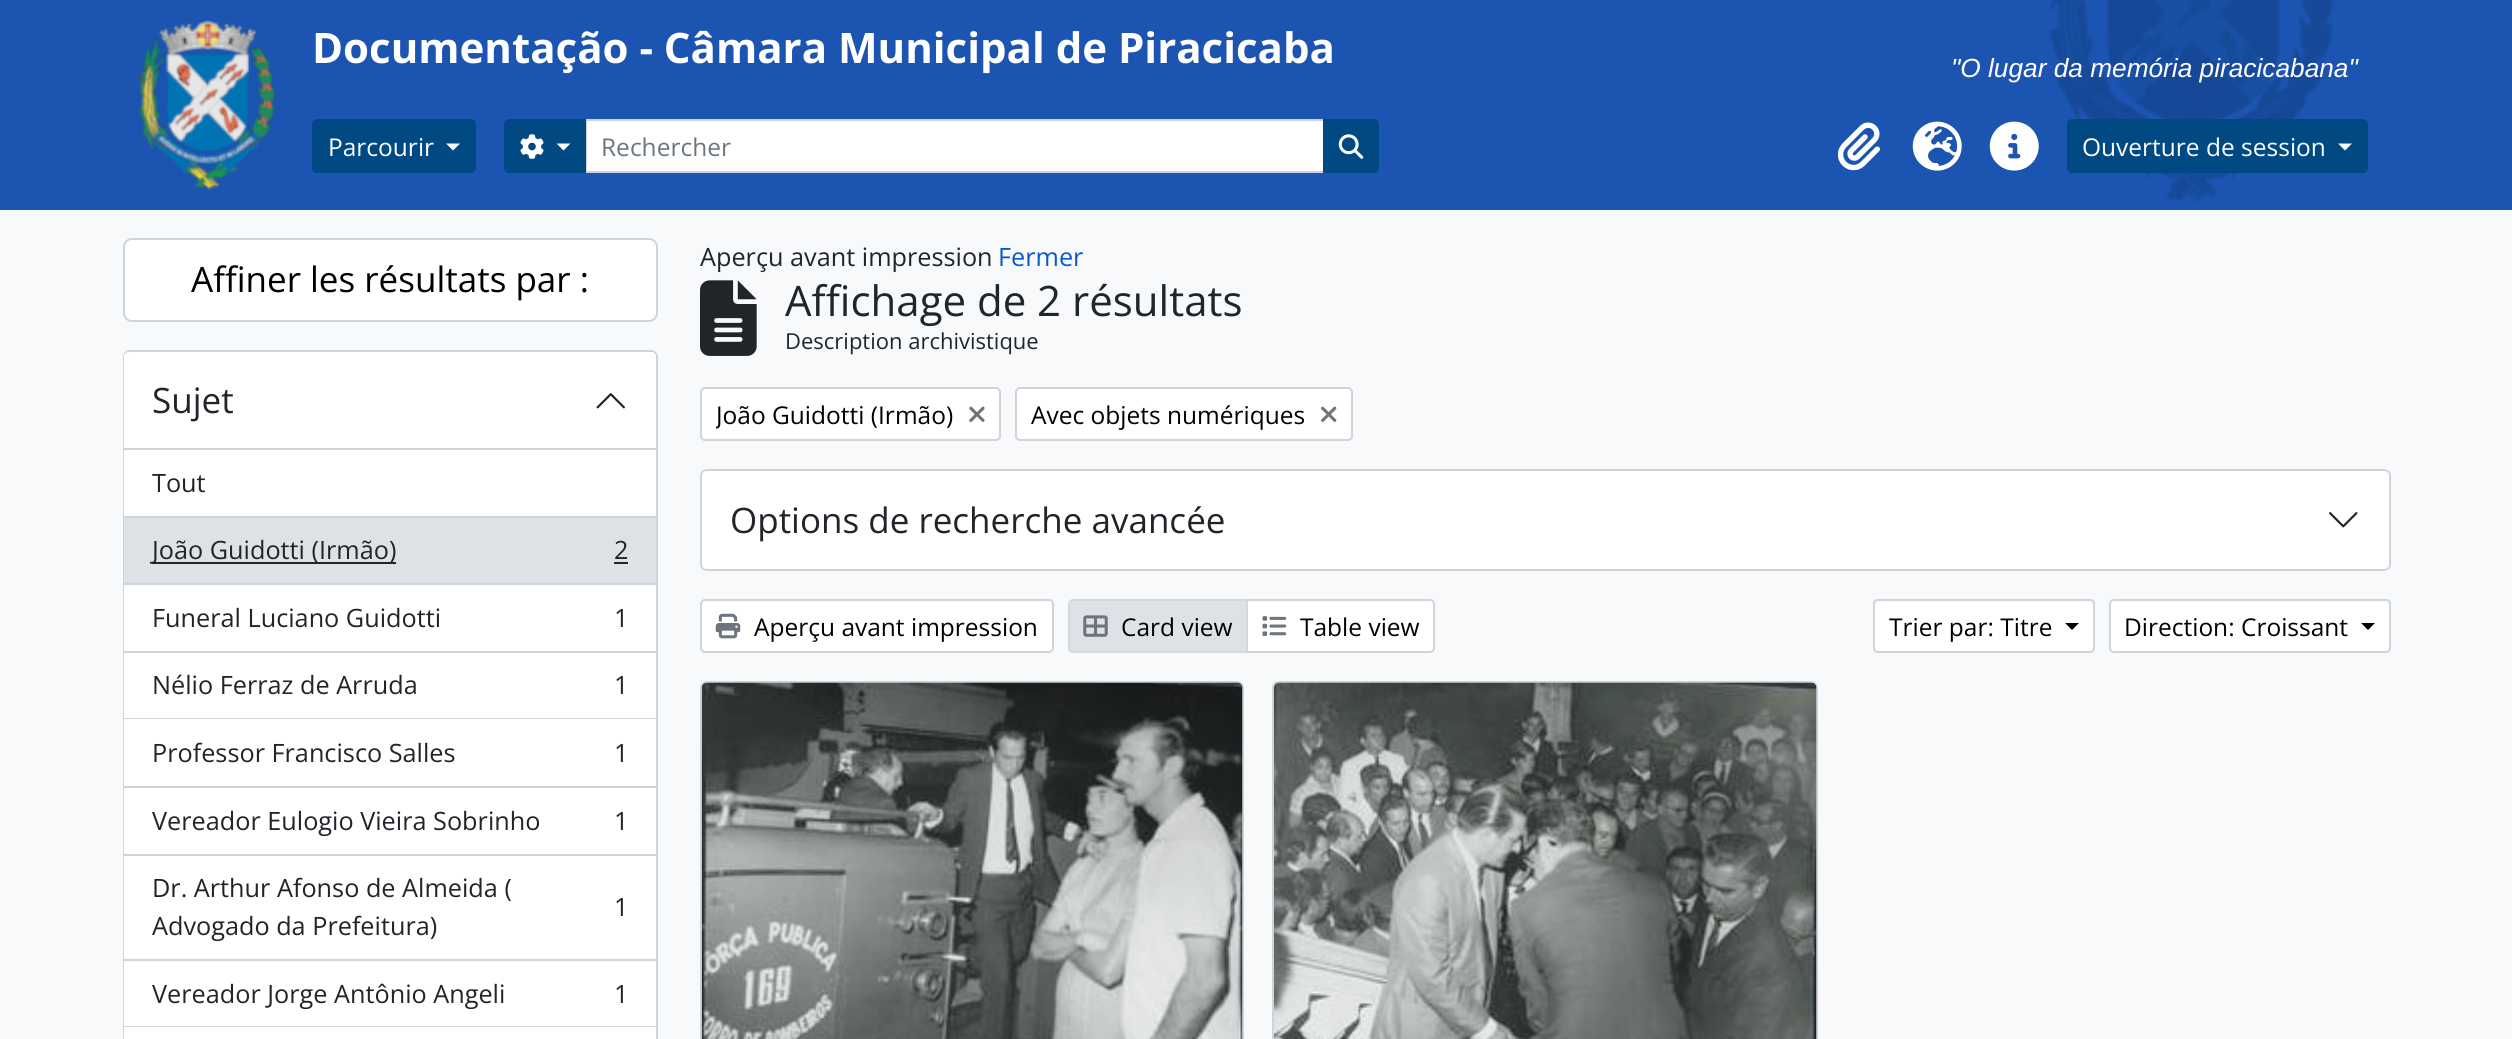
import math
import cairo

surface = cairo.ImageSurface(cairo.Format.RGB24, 2512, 1039)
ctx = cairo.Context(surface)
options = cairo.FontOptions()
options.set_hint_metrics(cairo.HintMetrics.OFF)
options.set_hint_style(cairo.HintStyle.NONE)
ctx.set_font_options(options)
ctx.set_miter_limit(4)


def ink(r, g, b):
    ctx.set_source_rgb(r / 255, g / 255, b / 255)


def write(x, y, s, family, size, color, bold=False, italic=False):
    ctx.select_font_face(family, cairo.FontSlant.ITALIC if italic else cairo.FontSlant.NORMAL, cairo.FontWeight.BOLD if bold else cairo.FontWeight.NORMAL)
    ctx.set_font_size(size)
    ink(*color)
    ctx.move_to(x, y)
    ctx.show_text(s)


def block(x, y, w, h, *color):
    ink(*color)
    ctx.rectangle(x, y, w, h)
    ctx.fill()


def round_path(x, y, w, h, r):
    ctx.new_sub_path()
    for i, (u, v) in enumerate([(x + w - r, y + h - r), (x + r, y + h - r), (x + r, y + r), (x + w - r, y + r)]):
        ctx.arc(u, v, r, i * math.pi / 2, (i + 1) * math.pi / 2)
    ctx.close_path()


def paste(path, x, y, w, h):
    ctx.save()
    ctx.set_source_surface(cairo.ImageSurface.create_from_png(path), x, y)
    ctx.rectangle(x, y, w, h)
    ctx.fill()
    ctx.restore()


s1 = dict(family="Open Sans", size=42, color=(255, 255, 255), bold=True)
s2 = dict(family="Liberation Sans", size=26.25, color=(255, 255, 255), italic=True)
s3 = dict(family="Open Sans", size=24.5, color=(255, 255, 255))
s4 = dict(family="Open Sans", size=24.5, color=(108, 117, 125))
s5 = dict(family="Open Sans", size=35, color=(0, 0, 0))
s6 = dict(family="Open Sans", size=35, color=(33, 37, 41))
s7 = dict(family="Open Sans", size=25.25, color=(33, 37, 41))
s8 = dict(family="Open Sans", size=25.25, color=(10, 88, 202))
s9 = dict(family="Open Sans", size=42, color=(33, 37, 41))
s10 = dict(family="Open Sans", size=22, color=(33, 37, 41))
s11 = dict(family="Open Sans", size=24.5, color=(0, 0, 0))

ink(248, 249, 250)
ctx.paint()
block(0, 0, 2512, 210, 28, 84, 178)
paste("pic1.png", 2049, 0, 284, 202)
paste("pic2.png", 138, 20, 138, 170)
write(312, 63, "Documentação - Câmara Municipal de Piracicaba", **s1)
write(1951, 77, "\"O lugar da memória piracicabana\"", **s2)
ink(0, 73, 131)
round_path(313, 120, 162, 52, 4)
ctx.fill_preserve()
ctx.stroke()
write(328, 156, "Parcourir", **s3)
ctx.new_path()
ctx.move_to(446, 143.5)
ctx.line_to(460, 143.5)
ctx.line_to(453, 150.5)
ctx.close_path()
ctx.fill()
ctx.rectangle(586, 120, 738, 52)
ctx.fill_preserve()
ink(206, 212, 218)
ctx.stroke()
ink(0, 73, 131)
ctx.new_path()
ctx.move_to(509, 120)
ctx.line_to(585, 120)
ctx.line_to(585, 172)
ctx.line_to(509, 172)
ctx.curve_to(507, 172, 505, 170, 505, 168)
ctx.line_to(505, 124)
ctx.curve_to(505, 122, 507, 120, 509, 120)
ctx.close_path()
ctx.fill_preserve()
ctx.stroke()
paste("pic3.png", 520, 134, 24, 25)
ink(255, 255, 255)
ctx.new_path()
ctx.move_to(556.5, 143.5)
ctx.line_to(570.5, 143.5)
ctx.line_to(563.5, 150.5)
ctx.close_path()
ctx.fill()
write(601, 156, "Rechercher", **s4)
ink(0, 73, 131)
ctx.new_path()
ctx.move_to(1324, 120)
ctx.line_to(1374, 120)
ctx.curve_to(1376, 120, 1378, 122, 1378, 124)
ctx.line_to(1378, 168)
ctx.curve_to(1378, 170, 1376, 172, 1374, 172)
ctx.line_to(1324, 172)
ctx.close_path()
ctx.fill_preserve()
ctx.stroke()
paste("pic4.png", 1338, 134, 26, 25)
paste("pic5.png", 1837, 122, 43, 49)
paste("pic6.png", 1912, 121, 50, 50)
paste("pic7.png", 1989, 121, 50, 50)
round_path(2068, 120, 299, 52, 4)
ctx.fill_preserve()
ctx.stroke()
write(2082, 156, "Ouverture de session", **s3)
ctx.new_path()
ctx.move_to(2338, 143.5)
ctx.line_to(2352, 143.5)
ctx.line_to(2345, 150.5)
ctx.close_path()
ctx.fill()
round_path(124, 239, 533, 82, 8)
ctx.fill_preserve()
ink(206, 212, 218)
ctx.stroke()
write(191, 292, "Affiner les résultats par :", **s5)
round_path(124, 351, 533, 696, 6)
ink(206, 212, 218)
ctx.stroke()
ink(255, 255, 255)
ctx.new_path()
ctx.move_to(129, 352)
ctx.line_to(651, 352)
ctx.curve_to(654, 352, 656, 354, 656, 357)
ctx.line_to(656, 450)
ctx.line_to(124, 450)
ctx.line_to(124, 357)
ctx.curve_to(124, 354, 126, 352, 129, 352)
ctx.close_path()
ctx.fill()
block(124, 448, 532, 2, 206, 212, 218)
write(152, 413, "Sujet", **s6)
paste("pic8.png", 596, 393, 29, 16)
block(124, 450, 532, 66, 255, 255, 255)
block(124, 516, 532, 2, 206, 212, 218)
write(152, 492, "Tout", **s7)
block(124, 518, 532, 65, 222, 226, 230)
block(124, 583, 532, 2, 206, 212, 218)
block(152, 562, 244, 2, 33, 37, 41)
write(152, 559, "João Guidotti (Irmão)", **s7)
write(614, 559, "2", **s7)
block(614, 562, 14, 2, 33, 37, 41)
block(124, 585, 532, 66, 255, 255, 255)
block(124, 651, 532, 2, 206, 212, 218)
write(152, 627, "Funeral Luciano Guidotti", **s7)
write(614, 627, "1", **s7)
block(124, 653, 532, 65, 255, 255, 255)
block(124, 718, 532, 1, 206, 212, 218)
write(152, 694, "Nélio Ferraz de Arruda", **s7)
write(614, 694, "1", **s7)
block(124, 719, 532, 67, 255, 255, 255)
block(124, 786, 532, 2, 206, 212, 218)
write(152, 762, "Professor Francisco Salles", **s7)
write(614, 762, "1", **s7)
block(124, 788, 532, 66, 255, 255, 255)
block(124, 854, 532, 2, 206, 212, 218)
write(152, 830, "Vereador Eulogio Vieira Sobrinho", **s7)
write(614, 830, "1", **s7)
block(124, 856, 532, 103, 255, 255, 255)
block(124, 959, 532, 2, 206, 212, 218)
write(152, 897, "Dr. Arthur Afonso de Almeida (", **s7)
write(614, 916, "1", **s7)
write(152, 935, "Advogado da Prefeitura)", **s7)
block(124, 961, 532, 65, 255, 255, 255)
block(124, 1026, 532, 1, 206, 212, 218)
write(152, 1003, "Vereador Jorge Antônio Angeli", **s7)
write(614, 1003, "1", **s7)
block(124, 1027, 532, 12, 255, 255, 255)
write(700, 266, "Aperçu avant impression", **s7)
write(998, 266, "Fermer", **s8)
paste("pic9.png", 700, 280, 57, 76)
write(785, 316, "Affichage de 2 résultats", **s9)
write(785, 349, "Description archivistique", **s10)
ink(255, 255, 255)
round_path(701, 388, 299, 52, 4)
ctx.fill_preserve()
ink(206, 212, 218)
ctx.stroke()
ctx.save()
ctx.rectangle(716, 396, 238, 36)
ctx.clip()
write(716, 424, "João Guidotti (Irmão)", **s11)
ctx.restore()
paste("pic10.png", 969, 406, 16, 16)
ink(255, 255, 255)
round_path(1016, 388, 336, 52, 4)
ctx.fill_preserve()
ink(206, 212, 218)
ctx.stroke()
write(1031, 424, "Avec objets numériques", **s11)
paste("pic11.png", 1321, 406, 16, 16)
round_path(701, 470, 1689, 100, 6)
ink(206, 212, 218)
ctx.stroke()
ink(255, 255, 255)
round_path(702, 471, 1687, 98, 5)
ctx.fill()
write(730, 533, "Options de recherche avancée", **s6)
paste("pic12.png", 2329, 512, 29, 16)
ink(255, 255, 255)
round_path(701, 600, 352, 52, 4)
ctx.fill_preserve()
ink(206, 212, 218)
ctx.stroke()
paste("pic13.png", 715, 613, 26, 26)
write(754, 636, "Aperçu avant impression", **s11)
ink(255, 255, 255)
ctx.new_path()
ctx.move_to(1247, 600)
ctx.line_to(1430, 600)
ctx.curve_to(1432, 600, 1434, 602, 1434, 604)
ctx.line_to(1434, 648)
ctx.curve_to(1434, 650, 1432, 652, 1430, 652)
ctx.line_to(1247, 652)
ctx.close_path()
ctx.fill_preserve()
ink(206, 212, 218)
ctx.stroke()
ink(222, 226, 230)
ctx.new_path()
ctx.move_to(1073, 600)
ctx.line_to(1247, 600)
ctx.line_to(1247, 652)
ctx.line_to(1073, 652)
ctx.curve_to(1071, 652, 1069, 650, 1069, 648)
ctx.line_to(1069, 604)
ctx.curve_to(1069, 602, 1071, 600, 1073, 600)
ctx.close_path()
ctx.fill_preserve()
ink(211, 216, 222)
ctx.stroke()
paste("pic14.png", 1083, 615, 25, 22)
write(1121, 636, "Card view", **s11)
paste("pic15.png", 1262, 616, 25, 20)
write(1300, 636, "Table view", **s11)
ink(255, 255, 255)
round_path(1874, 600, 220, 52, 4)
ctx.fill_preserve()
ink(206, 212, 218)
ctx.stroke()
write(1889, 636, "Trier par: Titre", **s11)
ctx.new_path()
ctx.move_to(2065, 623)
ctx.line_to(2079, 623)
ctx.line_to(2072, 630)
ctx.close_path()
ctx.fill()
ink(255, 255, 255)
round_path(2110, 600, 280, 52, 4)
ctx.fill_preserve()
ink(206, 212, 218)
ctx.stroke()
write(2124, 636, "Direction: Croissant", **s11)
ctx.new_path()
ctx.move_to(2361, 623)
ctx.line_to(2375, 623)
ctx.line_to(2368, 630)
ctx.close_path()
ctx.fill()
round_path(701, 682, 542, 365, 6)
ink(206, 212, 218)
ctx.stroke()
paste("pic16.png", 701, 682, 542, 357)
round_path(1273, 682, 544, 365, 6)
ctx.stroke()
paste("pic17.png", 1274, 682, 543, 357)
surface.write_to_png("screenshot.png")
